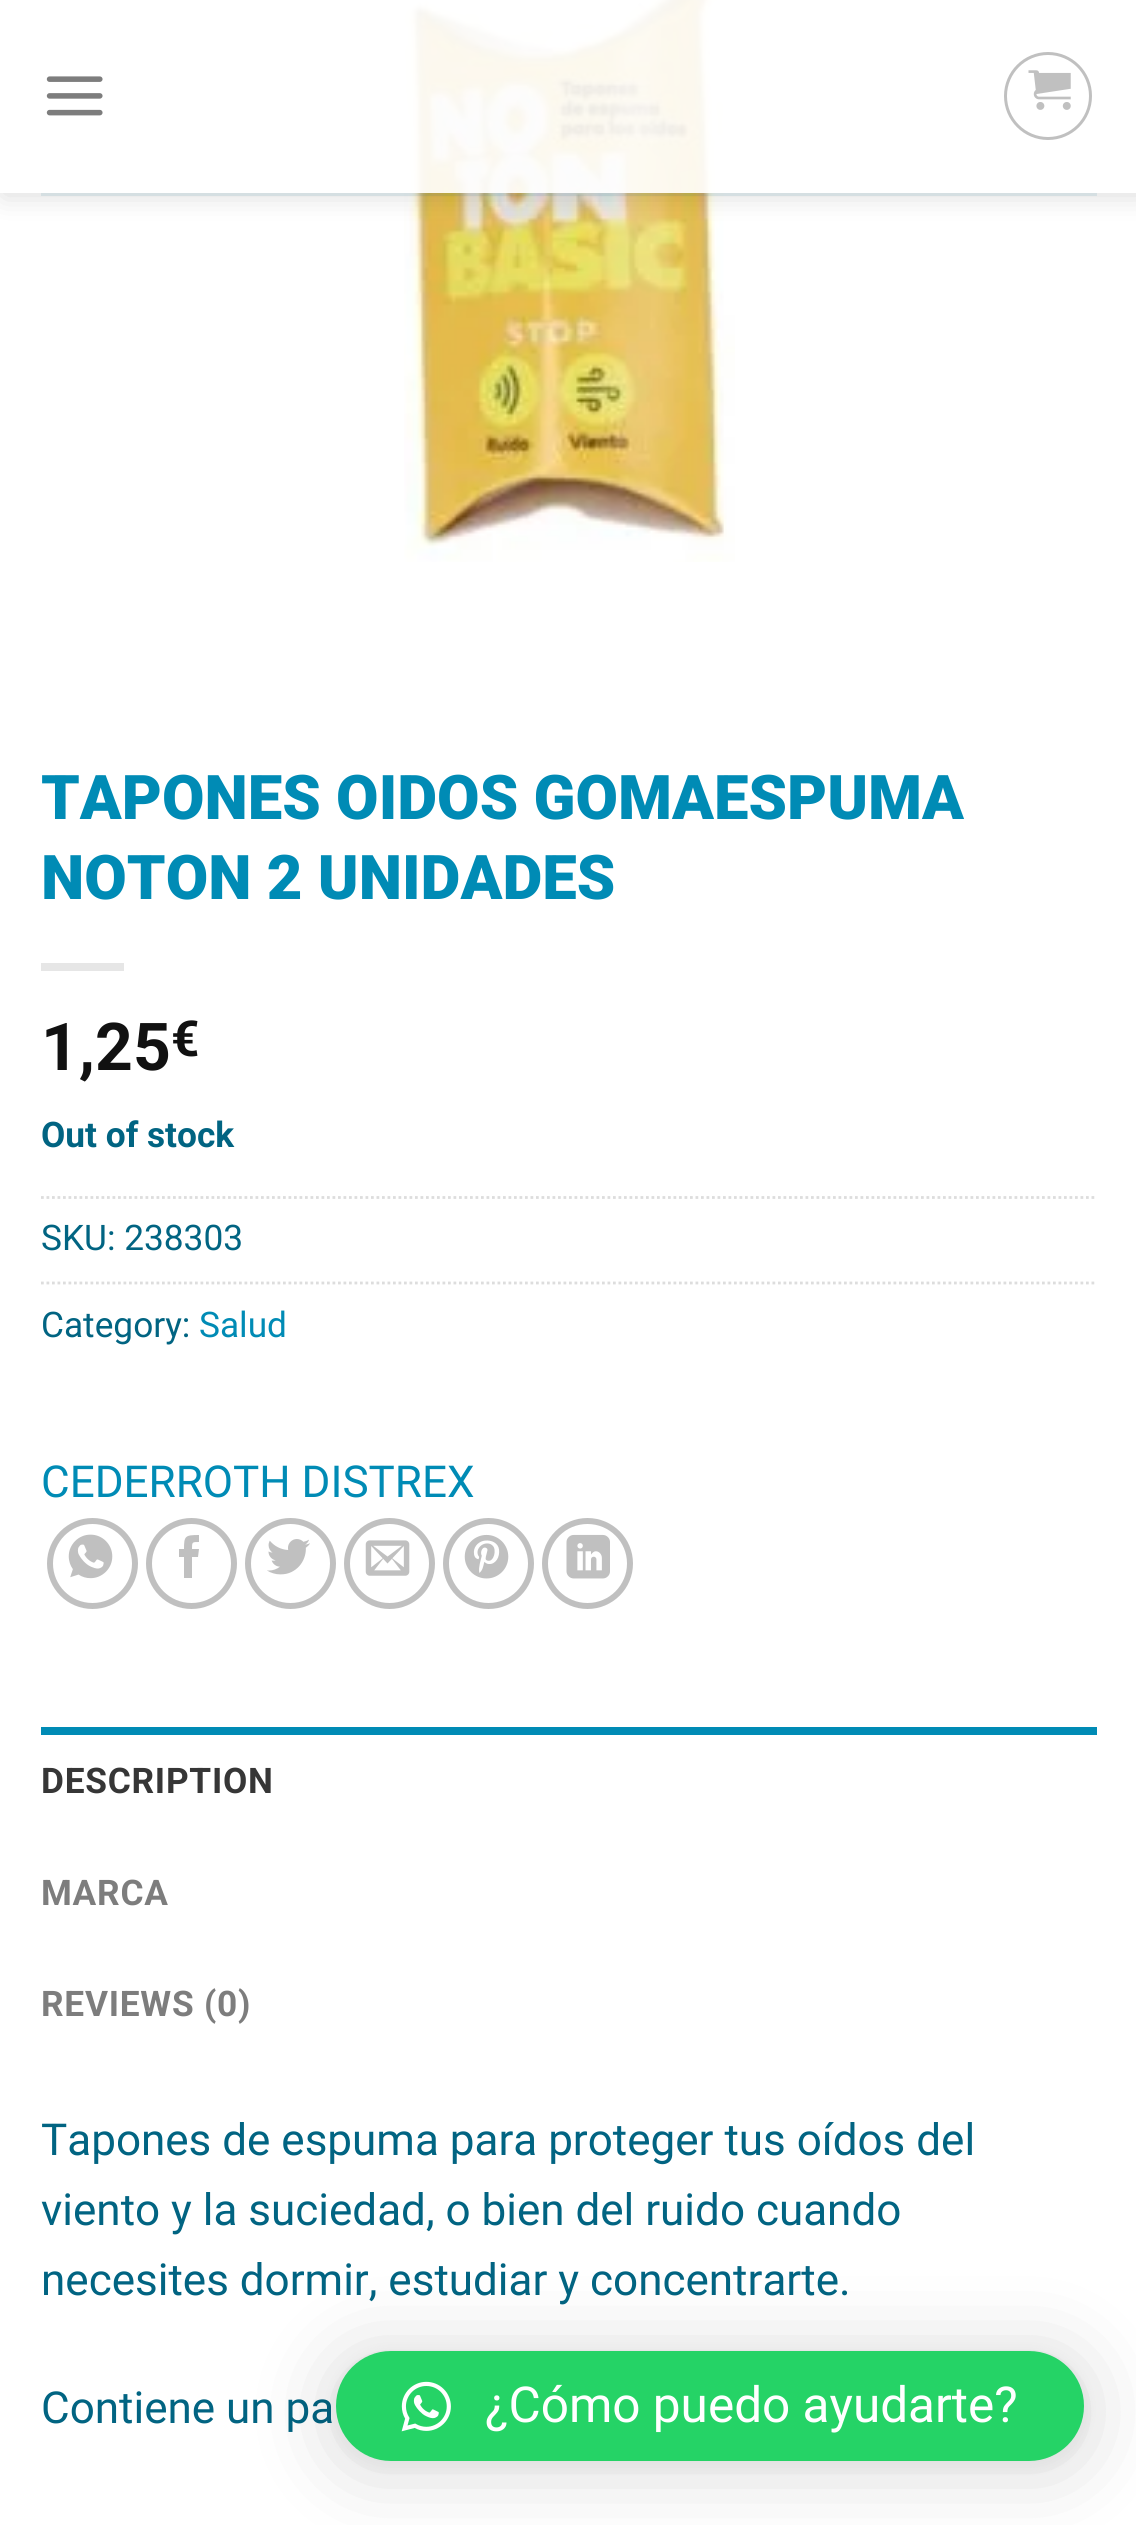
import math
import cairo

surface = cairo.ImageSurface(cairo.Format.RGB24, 1136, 2525)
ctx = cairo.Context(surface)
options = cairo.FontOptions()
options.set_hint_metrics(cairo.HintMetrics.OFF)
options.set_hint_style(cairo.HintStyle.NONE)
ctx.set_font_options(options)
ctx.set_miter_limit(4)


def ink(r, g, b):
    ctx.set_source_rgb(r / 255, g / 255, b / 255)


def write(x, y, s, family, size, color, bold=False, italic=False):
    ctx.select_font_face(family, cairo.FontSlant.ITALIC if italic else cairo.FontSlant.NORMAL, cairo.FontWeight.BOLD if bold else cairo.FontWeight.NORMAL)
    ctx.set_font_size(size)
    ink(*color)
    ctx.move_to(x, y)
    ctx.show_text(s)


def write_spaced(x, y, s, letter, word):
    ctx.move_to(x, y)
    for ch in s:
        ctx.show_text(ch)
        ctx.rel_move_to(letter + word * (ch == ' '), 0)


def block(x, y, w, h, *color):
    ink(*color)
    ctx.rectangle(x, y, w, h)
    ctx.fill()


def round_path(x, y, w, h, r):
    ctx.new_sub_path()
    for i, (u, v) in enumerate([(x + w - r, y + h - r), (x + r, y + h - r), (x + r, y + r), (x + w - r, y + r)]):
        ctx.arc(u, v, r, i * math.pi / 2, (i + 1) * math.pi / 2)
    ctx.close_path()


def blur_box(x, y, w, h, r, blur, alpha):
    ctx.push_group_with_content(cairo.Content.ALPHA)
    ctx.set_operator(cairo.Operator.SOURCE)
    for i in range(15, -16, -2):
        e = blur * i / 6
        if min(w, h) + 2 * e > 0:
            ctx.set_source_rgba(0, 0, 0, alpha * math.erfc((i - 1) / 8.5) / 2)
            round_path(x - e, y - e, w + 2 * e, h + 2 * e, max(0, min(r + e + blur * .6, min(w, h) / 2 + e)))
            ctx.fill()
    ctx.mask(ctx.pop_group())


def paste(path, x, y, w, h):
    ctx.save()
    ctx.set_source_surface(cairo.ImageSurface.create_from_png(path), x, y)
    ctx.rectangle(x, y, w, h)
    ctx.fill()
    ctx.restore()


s1 = dict(family="Roboto Black", size=61.6, color=(0, 139, 181))
s2 = dict(family="Roboto", size=66, color=(17, 17, 17), bold=True)
s3 = dict(family="Roboto", size=49.5, color=(17, 17, 17), bold=True)
s4 = dict(family="Roboto", size=35.25, color=(1, 100, 130), bold=True)
s5 = dict(family="Roboto", size=35.25, color=(1, 100, 130))
s6 = dict(family="Roboto", size=35.25, color=(0, 139, 181))
s7 = dict(family="Roboto", size=44, color=(0, 139, 181))
s8 = dict(family="Roboto", size=44, color=(1, 100, 130))
s9 = dict(family="Roboto", size=49.5, color=(255, 255, 255))

ink(255, 255, 255)
ctx.paint()
paste("pic3.png", 404, 0, 331, 562)
ctx.save()
ctx.set_fill_rule(cairo.FillRule.EVEN_ODD)
ctx.new_path()
ctx.move_to(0, 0)
ctx.line_to(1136, 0)
ctx.line_to(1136, 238)
ctx.line_to(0, 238)
ctx.close_path()
ctx.move_to(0, 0)
ctx.line_to(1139, 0)
ctx.line_to(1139, 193)
ctx.line_to(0, 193)
ctx.close_path()
ctx.clip()
ink(0, 0, 0)
blur_box(3, 3, 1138, 192, 0, 14, 0.15)
ctx.restore()
ctx.set_source_rgba(1, 1, 1, 0.9)
ctx.rectangle(0, 0, 1136, 193)
ctx.fill()
paste("pic1.png", 46, 76, 57, 40)
ctx.arc(1048, 96, 42.5, 0, 2 * math.pi)
ink(192, 192, 192)
ctx.set_line_width(3)
ctx.stroke()
paste("pic2.png", 1028, 70, 43, 40)
ctx.set_source_rgba(0.004, 0.392, 0.51, 0.1)
ctx.rectangle(41, 193, 1056, 3)
ctx.fill()
write(41, 819, "TAPONES OIDOS GOMAESPUMA", **s1)
write(41, 899, "NOTON 2 UNIDADES", **s1)
block(41, 963, 83, 8, 230, 230, 230)
write(41, 1070, "1,25", **s2)
write(171, 1056, "€", **s3)
write(41, 1147, "Out of stock", **s4)
ctx.new_path()
ctx.move_to(41, 1197.5)
ctx.line_to(1097, 1197.5)
ink(221, 221, 221)
ctx.set_line_width(2.8)
ctx.set_dash([2.75, 2.75])
ctx.stroke()
write(41, 1250, "SKU: 238303", **s5)
ctx.new_path()
ctx.move_to(41, 1283)
ctx.line_to(1097, 1283)
ink(221, 221, 221)
ctx.stroke()
write(41, 1337, "Category:", **s5)
write(199, 1337, "Salud", **s6)
write(41, 1497, "CEDERROTH DISTREX", **s7)
ctx.new_path()
ctx.arc(92.5, 1563.5, 42.5, 0, 2 * math.pi)
ink(192, 192, 192)
ctx.set_line_width(6)
ctx.set_dash([])
ctx.stroke()
paste("pic4.png", 68, 1534, 45, 45)
ctx.arc(191.5, 1563.5, 42.5, 0, 2 * math.pi)
ctx.stroke()
ctx.new_path()
ctx.move_to(192, 1578)
ctx.line_to(184, 1578)
ctx.line_to(184, 1557)
ctx.line_to(179, 1557)
ctx.line_to(179, 1549)
ctx.line_to(184, 1549)
ctx.curve_to(184, 1536, 185, 1535, 199, 1535)
ctx.line_to(199, 1542)
ctx.curve_to(192, 1542, 192, 1542, 192, 1549)
ctx.line_to(199, 1549)
ctx.line_to(198, 1557)
ctx.line_to(192, 1557)
ctx.close_path()
ctx.fill()
ctx.arc(290.5, 1563.5, 42.5, 0, 2 * math.pi)
ctx.stroke()
paste("pic5.png", 267, 1539, 43, 36)
ctx.arc(389.5, 1563.5, 42.5, 0, 2 * math.pi)
ctx.stroke()
paste("pic6.png", 365, 1540, 45, 36)
ctx.arc(488.5, 1563.5, 42.5, 0, 2 * math.pi)
ctx.stroke()
paste("pic7.png", 464, 1534, 45, 45)
ctx.arc(587.5, 1563.5, 42.5, 0, 2 * math.pi)
ctx.stroke()
paste("pic8.png", 566, 1534, 44, 45)
block(41, 1727, 1056, 8, 0, 139, 181)
ctx.select_font_face("Roboto", cairo.FontSlant.NORMAL, cairo.FontWeight.BOLD)
ctx.set_font_size(35.25)
ink(54, 54, 54)
write_spaced(41, 1793, "DESCRIPTION", 0.75, 0)
ink(125, 125, 125)
write_spaced(41, 1905, "MARCA", 0.75, 0)
write_spaced(41, 2016, "REVIEWS (0)", 0.75, 0)
write(41, 2155, "Tapones de espuma para proteger tus oídos del", **s8)
write(41, 2225, "viento y la suciedad, o bien del ruido cuando", **s8)
write(41, 2295, "necesites dormir, estudiar y concentrarte.", **s8)
write(41, 2423, "Contiene un pa", **s8)
ink(0, 0, 0)
blur_box(336, 2357, 748, 110, 55, 44, 0.16)
blur_box(336, 2354, 748, 110, 55, 8, 0.06)
ink(37, 211, 102)
round_path(336, 2351, 748, 110, 55)
ctx.fill()
paste("pic9.png", 401, 2381, 50, 51)
write(485, 2422, "¿Cómo puedo ayudarte?", **s9)
surface.write_to_png("screenshot.png")
